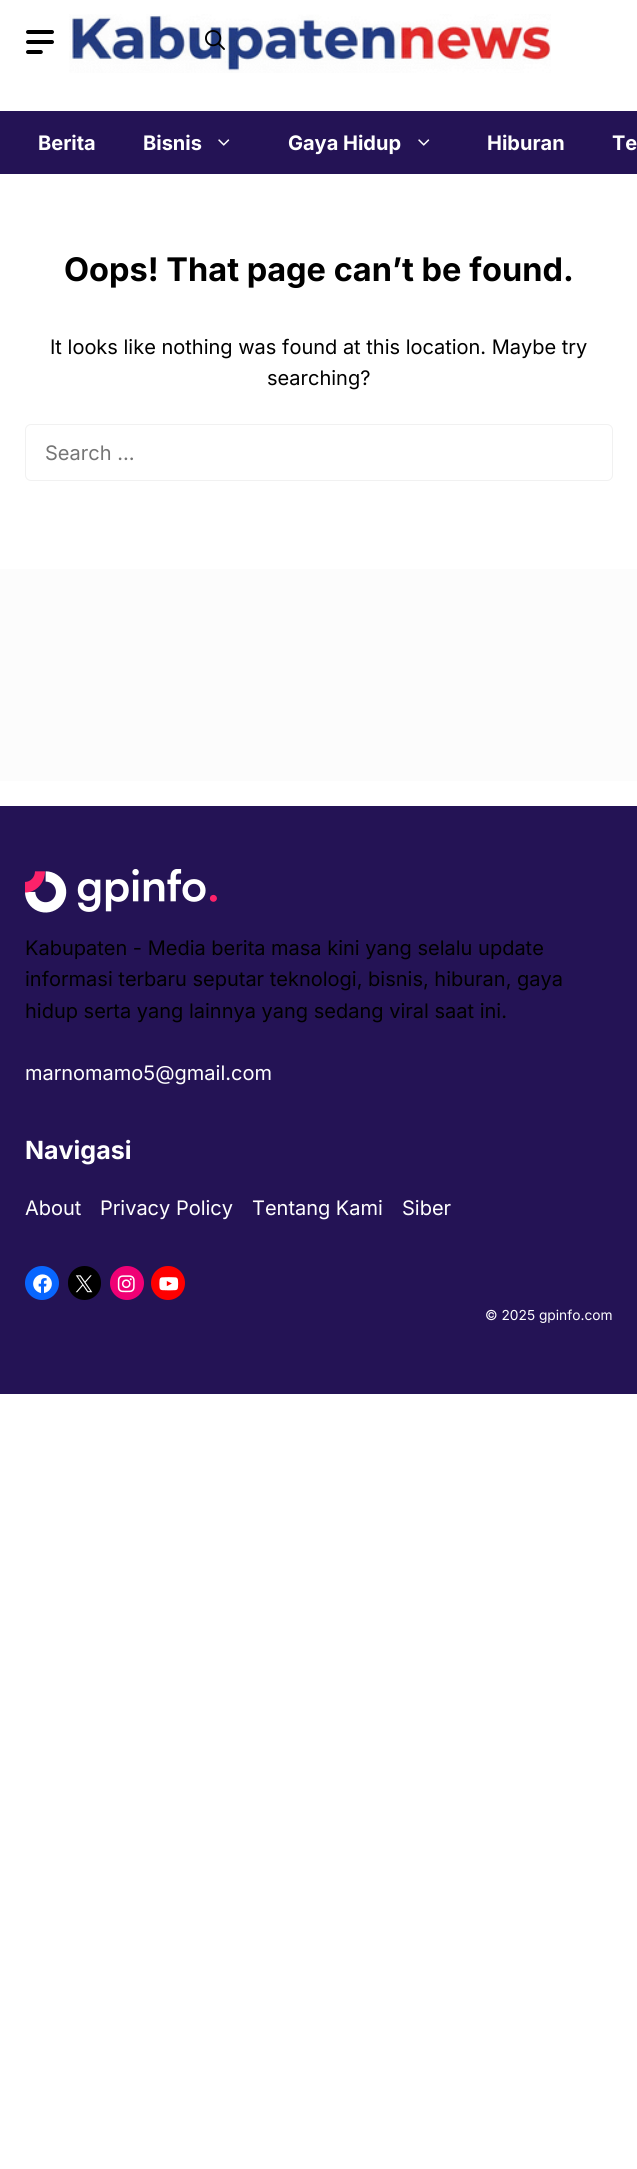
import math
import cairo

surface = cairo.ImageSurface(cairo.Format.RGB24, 637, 2169)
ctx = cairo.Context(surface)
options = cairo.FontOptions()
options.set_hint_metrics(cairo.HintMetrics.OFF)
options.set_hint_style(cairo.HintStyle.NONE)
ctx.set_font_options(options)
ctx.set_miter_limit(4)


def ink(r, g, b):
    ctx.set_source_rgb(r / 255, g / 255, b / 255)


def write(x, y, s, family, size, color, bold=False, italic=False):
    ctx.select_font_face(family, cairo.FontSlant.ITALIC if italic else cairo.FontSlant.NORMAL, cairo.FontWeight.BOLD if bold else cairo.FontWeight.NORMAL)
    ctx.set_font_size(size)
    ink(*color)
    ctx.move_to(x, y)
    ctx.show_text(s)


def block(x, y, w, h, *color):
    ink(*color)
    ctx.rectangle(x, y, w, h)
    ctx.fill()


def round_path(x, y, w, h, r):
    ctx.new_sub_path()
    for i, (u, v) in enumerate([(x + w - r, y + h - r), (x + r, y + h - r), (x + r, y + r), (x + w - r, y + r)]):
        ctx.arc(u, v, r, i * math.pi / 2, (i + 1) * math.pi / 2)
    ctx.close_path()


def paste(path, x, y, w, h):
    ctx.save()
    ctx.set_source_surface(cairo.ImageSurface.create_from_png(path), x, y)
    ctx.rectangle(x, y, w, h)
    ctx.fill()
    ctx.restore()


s1 = dict(family="Inter", size=20, color=(255, 255, 255), bold=True)
s2 = dict(family="Inter", size=32.5, color=(0, 0, 0), bold=True)
s3 = dict(family="Inter", size=20, color=(0, 0, 0))
s4 = dict(family="Inter", size=20, color=(117, 117, 117))
s5 = dict(family="Inter", size=20, color=(255, 255, 255))
s6 = dict(family="Inter", size=25, color=(255, 255, 255), bold=True)
s7 = dict(family="Inter", size=13.75, color=(255, 255, 255))

ink(255, 255, 255)
ctx.paint()
paste("pic1.png", 26, 30, 28, 24)
paste("pic2.png", 69, 14, 482, 59)
paste("pic3.png", 205, 30, 20, 20)
block(0, 111, 637, 63, 36, 19, 85)
write(38, 150, "Berita", **s1)
write(143, 150, "Bisnis", **s1)
paste("pic4.png", 218, 139, 12, 7)
write(288, 150, "Gaya Hidup", **s1)
paste("pic4.png", 418, 139, 12, 7)
write(487, 150, "Hiburan", **s1)
write(612, 150, "Te", **s1)
write(64, 281, "Oops! That page can’t be found.", **s2)
write(50, 354, "It looks like nothing was found at this location. Maybe try", **s3)
write(267, 385, "searching?", **s3)
round_path(25.5, 424.5, 587, 56, 5.5)
ink(241, 241, 241)
ctx.set_line_width(1)
ctx.stroke()
write(45, 460, "Search …", **s4)
block(0, 569, 637, 212, 252, 252, 252)
block(0, 806, 637, 588, 36, 19, 85)
paste("pic5.png", 25, 869, 192, 44)
write(25, 955, "Kabupaten - Media berita masa kini yang selalu update", **s3)
write(25, 986, "informasi terbaru seputar teknologi, bisnis, hiburan, gaya", **s3)
write(25, 1018, "hidup serta yang lainnya yang sedang viral saat ini.", **s3)
write(25, 1080, "marnomamo5@gmail.com", **s5)
write(25, 1159, "Navigasi", **s6)
write(25, 1215, "About", **s5)
write(100, 1215, "Privacy Policy", **s5)
write(252, 1215, "Tentang Kami", **s5)
write(402, 1215, "Siber", **s5)
ink(8, 102, 255)
ctx.new_path()
ctx.arc(42, 1283, 17, 0, 2 * math.pi)
ctx.fill()
paste("pic6.png", 33, 1274, 19, 19)
ink(0, 0, 0)
round_path(68, 1266, 33, 34, 16.5)
ctx.fill()
paste("pic7.png", 75, 1275, 18, 18)
ink(240, 0, 117)
ctx.arc(127, 1283, 17, 0, 2 * math.pi)
ctx.fill()
paste("pic8.png", 117, 1275, 18, 18)
ink(255, 0, 0)
ctx.arc(168, 1283, 17, 0, 2 * math.pi)
ctx.fill()
paste("pic9.png", 159, 1277, 20, 14)
write(485, 1320, "© 2025 gpinfo.com", **s7)
surface.write_to_png("screenshot.png")
